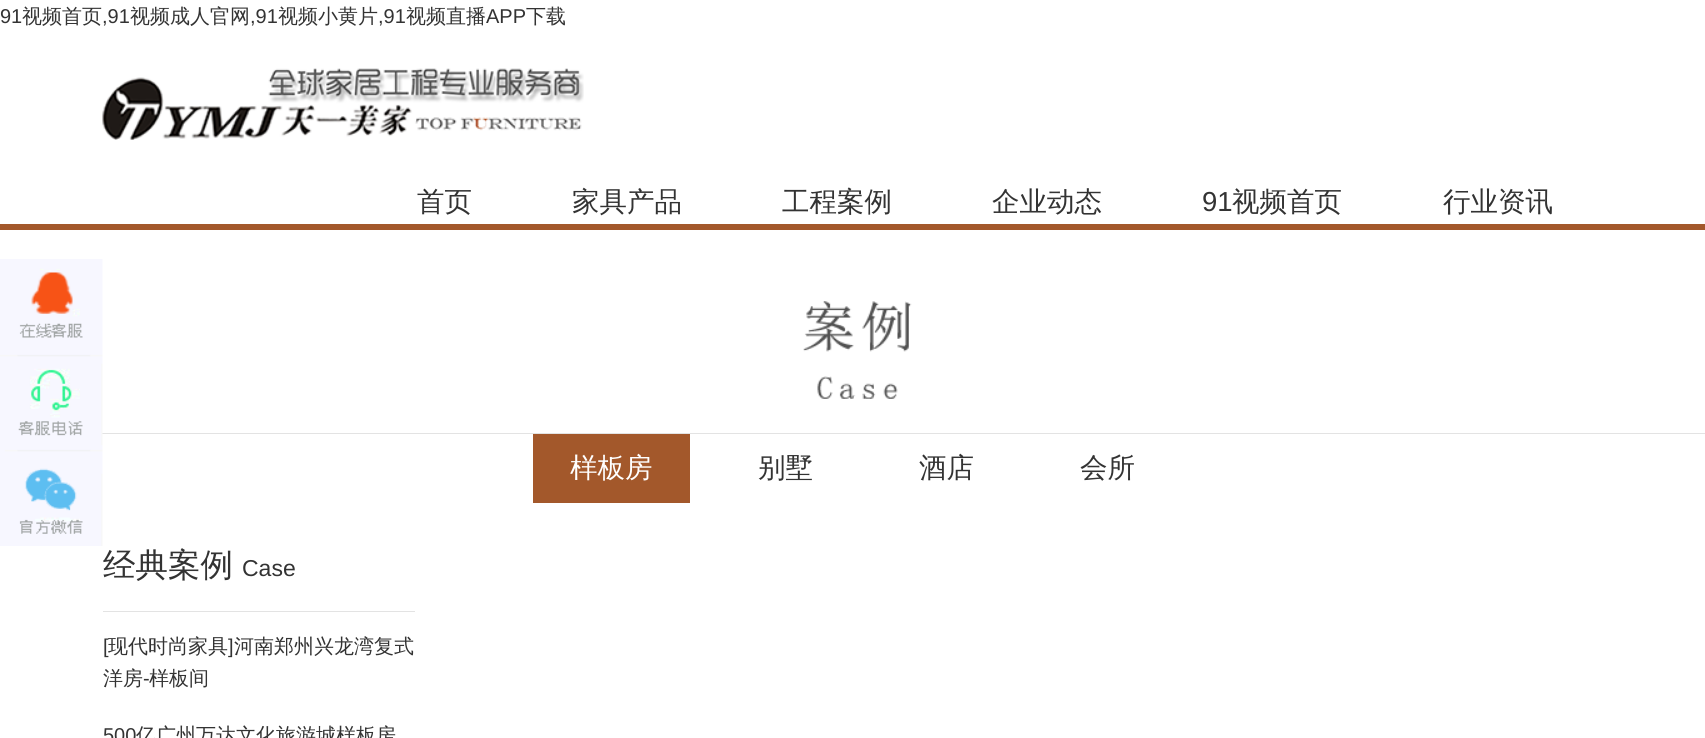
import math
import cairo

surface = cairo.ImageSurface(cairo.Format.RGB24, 1705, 738)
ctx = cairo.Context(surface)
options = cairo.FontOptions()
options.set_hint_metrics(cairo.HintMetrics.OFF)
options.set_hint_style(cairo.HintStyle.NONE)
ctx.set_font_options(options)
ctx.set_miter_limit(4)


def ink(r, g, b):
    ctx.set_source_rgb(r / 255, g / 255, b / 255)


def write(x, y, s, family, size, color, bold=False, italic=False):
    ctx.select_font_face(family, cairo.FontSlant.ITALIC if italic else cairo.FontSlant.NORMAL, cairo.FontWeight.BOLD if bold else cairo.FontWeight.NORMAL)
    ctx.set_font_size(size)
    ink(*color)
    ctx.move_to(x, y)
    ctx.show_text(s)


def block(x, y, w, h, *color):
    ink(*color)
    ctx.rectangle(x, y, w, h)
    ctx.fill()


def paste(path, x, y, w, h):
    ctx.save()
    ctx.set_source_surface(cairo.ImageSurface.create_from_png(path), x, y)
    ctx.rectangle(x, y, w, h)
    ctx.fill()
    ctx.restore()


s1 = dict(family="Liberation Sans", size=20, color=(51, 51, 51))
s2 = dict(family="WenQuanYi Zen Hei Medium", size=20, color=(51, 51, 51))
s3 = dict(family="WenQuanYi Zen Hei Medium", size=27.5, color=(51, 51, 51))
s4 = dict(family="Liberation Sans", size=27.5, color=(51, 51, 51))
s5 = dict(family="WenQuanYi Zen Hei Medium", size=27.5, color=(255, 255, 255))
s6 = dict(family="WenQuanYi Zen Hei Medium", size=32.5, color=(51, 51, 51))
s7 = dict(family="Liberation Sans", size=23, color=(51, 51, 51))

ink(255, 255, 255)
ctx.paint()
write(0, 23, "91", **s1)
write(22, 23, "视频首页", **s2)
write(102, 23, ",91", **s1)
write(130, 23, "视频成人官网", **s2)
write(250, 23, ",91", **s1)
write(278, 23, "视频小黄片", **s2)
write(378, 23, ",91", **s1)
write(406, 23, "视频直播", **s2)
write(486, 23, "APP", **s1)
write(526, 23, "下载", **s2)
block(0, 224, 1705, 6, 163, 88, 43)
paste("pic1.png", 102, 68, 482, 72)
write(417, 211, "首页", **s3)
write(572, 211, "家具产品", **s3)
write(782, 211, "工程案例", **s3)
write(992, 211, "企业动态", **s3)
write(1202, 211, "91", **s4)
write(1232, 211, "视频首页", **s3)
write(1443, 211, "行业资讯", **s3)
block(102, 433, 1603, 1, 227, 227, 227)
paste("pic2.png", 0, 259, 103, 287)
paste("pic3.png", 803, 301, 109, 98)
block(533, 434, 157, 69, 163, 88, 43)
write(570, 477, "样板房", **s5)
write(758, 477, "别墅", **s3)
write(919, 477, "酒店", **s3)
write(1080, 477, "会所", **s3)
block(103, 611, 312, 1, 227, 227, 227)
write(103, 576, "经典案例", **s6)
write(242, 576, "Case", **s7)
write(103, 653, "[", **s1)
write(108, 653, "现代时尚家具", **s2)
write(228, 653, "]", **s1)
write(234, 653, "河南郑州兴龙湾复式", **s2)
write(103, 685, "洋房", **s2)
write(143, 685, "-", **s1)
write(149, 685, "样板间", **s2)
write(103, 742, "500", **s1)
write(136, 742, "亿广州万达文化旅游城样板房", **s2)
surface.write_to_png("screenshot.png")
